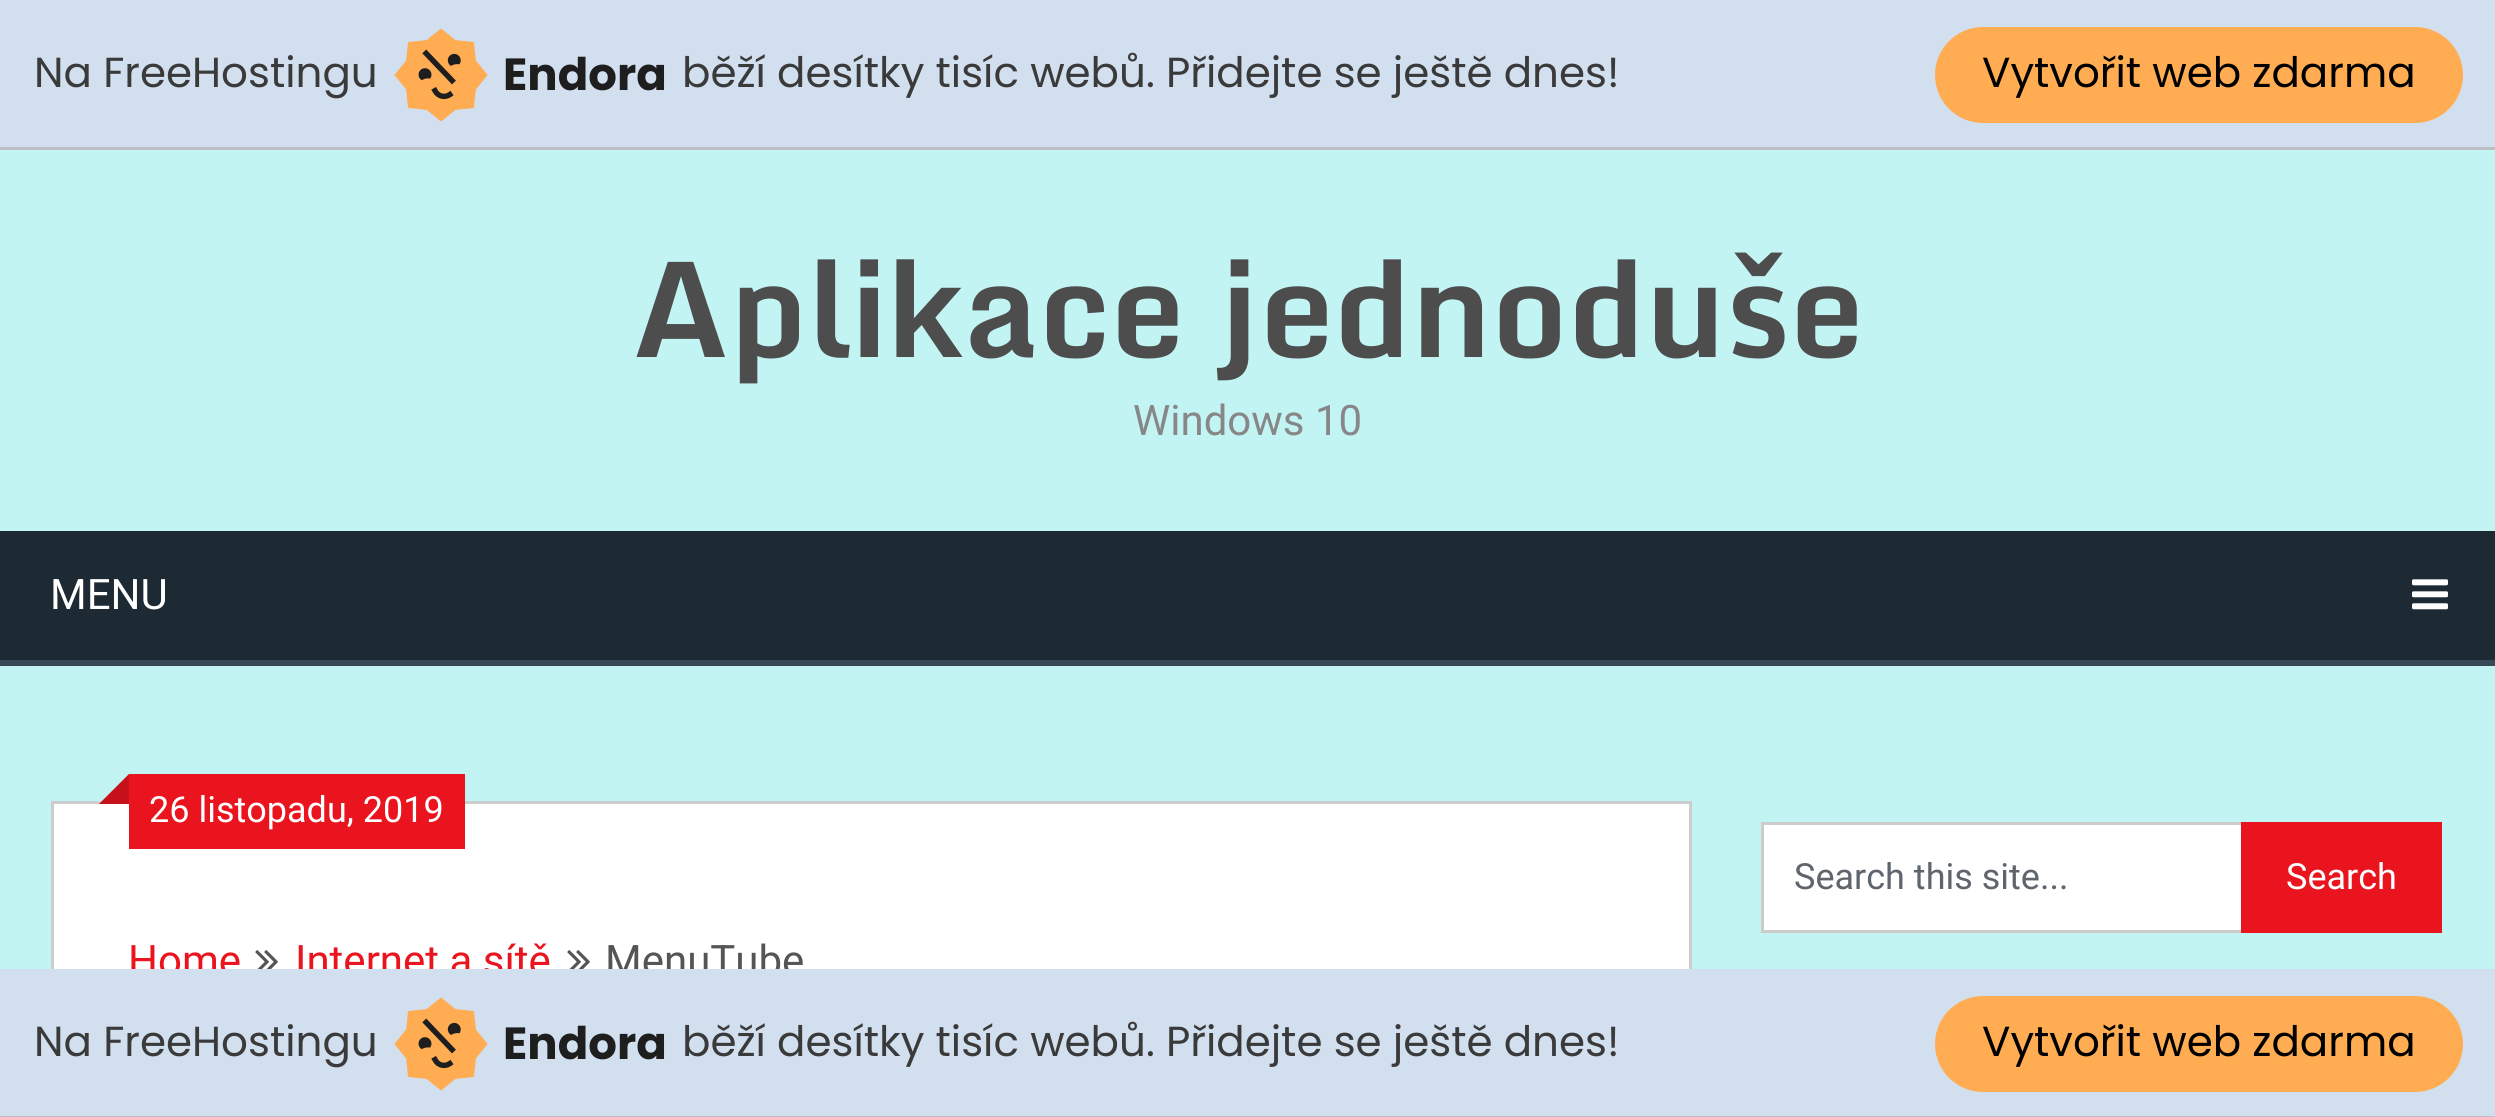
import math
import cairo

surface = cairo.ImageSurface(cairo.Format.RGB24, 2495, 1117)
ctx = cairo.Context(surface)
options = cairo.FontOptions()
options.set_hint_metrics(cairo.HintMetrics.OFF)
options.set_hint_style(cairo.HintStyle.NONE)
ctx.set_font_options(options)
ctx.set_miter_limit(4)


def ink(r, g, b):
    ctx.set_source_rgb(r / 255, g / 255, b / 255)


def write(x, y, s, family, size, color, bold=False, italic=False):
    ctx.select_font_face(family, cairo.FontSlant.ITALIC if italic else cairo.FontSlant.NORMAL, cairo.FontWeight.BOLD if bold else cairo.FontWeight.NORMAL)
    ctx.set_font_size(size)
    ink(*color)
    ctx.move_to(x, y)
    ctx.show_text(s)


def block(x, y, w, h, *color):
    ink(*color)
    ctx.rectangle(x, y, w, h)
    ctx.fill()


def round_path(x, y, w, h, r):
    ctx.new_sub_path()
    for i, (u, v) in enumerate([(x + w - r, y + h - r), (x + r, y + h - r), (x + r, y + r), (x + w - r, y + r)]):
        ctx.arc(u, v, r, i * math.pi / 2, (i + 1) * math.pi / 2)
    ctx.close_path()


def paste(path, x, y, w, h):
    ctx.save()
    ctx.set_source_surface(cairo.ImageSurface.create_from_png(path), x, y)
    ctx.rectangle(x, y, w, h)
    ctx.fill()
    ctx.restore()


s1 = dict(family="Poppins", size=42, color=(58, 58, 58))
s2 = dict(family="Poppins", size=45, color=(30, 30, 30), bold=True)
s3 = dict(family="Poppins", size=42, color=(0, 0, 0))
s4 = dict(family="Monda", size=132, color=(77, 77, 77), bold=True)
s5 = dict(family="Roboto", size=42, color=(135, 135, 135))
s6 = dict(family="Roboto", size=42, color=(255, 255, 255))
s7 = dict(family="Roboto", size=36, color=(255, 255, 255))
s8 = dict(family="Roboto", size=42, color=(234, 20, 31))
s9 = dict(family="Roboto", size=42, color=(85, 85, 85))
s10 = dict(family="Roboto", size=36, color=(94, 101, 109))

ink(195, 244, 244)
ctx.paint()
block(0, 0, 2495, 147, 210, 223, 239)
block(0, 147, 2495, 3, 190, 191, 196)
write(34, 87, "Na FreeHostingu", **s1)
paste("pic1.png", 394, 28, 94, 94)
write(503, 90, "Endora", **s2)
write(682, 87, "běží desítky tisíc webů. Přidejte se ještě dnes!", **s1)
ink(255, 172, 82)
round_path(1935, 27, 528, 96, 48)
ctx.fill()
write(1982, 87, "Vytvořit web zdarma", **s3)
write(632, 357, "Aplikace jednoduše", **s4)
write(1133, 435, "Windows 10", **s5)
block(0, 660, 2495, 6, 54, 73, 86)
block(0, 531, 2495, 129, 29, 41, 51)
write(50, 609, "MENU", **s6)
paste("pic2.png", 2412, 579, 36, 31)
block(54, 804, 1635, 165, 255, 255, 255)
ctx.rectangle(52.5, 802.5, 1638, 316)
ink(205, 205, 205)
ctx.set_line_width(3)
ctx.stroke()
block(129, 774, 336, 75, 234, 20, 31)
ctx.new_path()
ctx.move_to(129, 804)
ctx.line_to(99, 804)
ctx.line_to(129, 774)
ctx.close_path()
ctx.fill()
ctx.set_source_rgba(0, 0, 0, 0.15)
ctx.new_path()
ctx.move_to(129, 804)
ctx.line_to(99, 804)
ctx.line_to(129, 774)
ctx.close_path()
ctx.fill()
write(149, 822, "26 listopadu, 2019", **s7)
write(128, 975, "Home", **s8)
paste("pic3.png", 255, 950, 23, 19)
write(295, 975, "Internet a sítě", **s8)
paste("pic3.png", 567, 950, 23, 19)
write(605, 975, "MenuTube", **s9)
block(1764, 825, 477, 105, 255, 255, 255)
block(1761, 822, 480, 3, 204, 204, 204)
block(1761, 930, 480, 3, 204, 204, 204)
block(1761, 822, 3, 111, 204, 204, 204)
write(1794, 889, "Search this site...", **s10)
block(2241, 822, 201, 111, 234, 20, 31)
write(2286, 889, "Search", **s7)
block(0, 969, 2495, 147, 210, 223, 239)
block(0, 1116, 2495, 1, 190, 191, 196)
write(34, 1056, "Na FreeHostingu", **s1)
paste("pic1.png", 394, 997, 94, 94)
write(503, 1059, "Endora", **s2)
write(682, 1056, "běží desítky tisíc webů. Přidejte se ještě dnes!", **s1)
ink(255, 172, 82)
round_path(1935, 996, 528, 96, 48)
ctx.fill()
write(1982, 1056, "Vytvořit web zdarma", **s3)
surface.write_to_png("screenshot.png")
